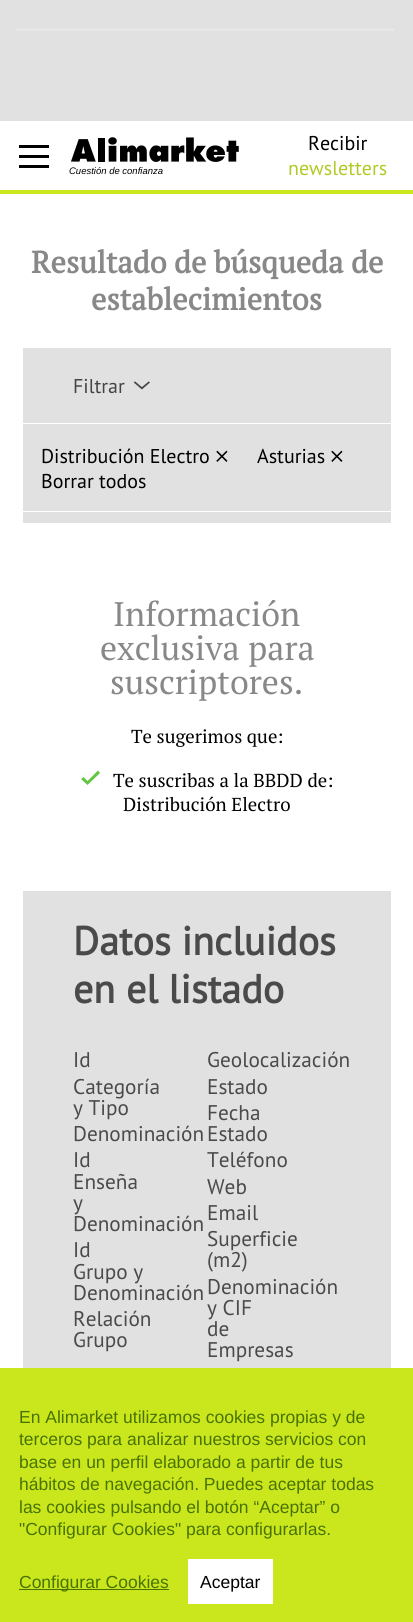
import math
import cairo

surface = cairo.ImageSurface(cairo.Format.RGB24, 413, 1622)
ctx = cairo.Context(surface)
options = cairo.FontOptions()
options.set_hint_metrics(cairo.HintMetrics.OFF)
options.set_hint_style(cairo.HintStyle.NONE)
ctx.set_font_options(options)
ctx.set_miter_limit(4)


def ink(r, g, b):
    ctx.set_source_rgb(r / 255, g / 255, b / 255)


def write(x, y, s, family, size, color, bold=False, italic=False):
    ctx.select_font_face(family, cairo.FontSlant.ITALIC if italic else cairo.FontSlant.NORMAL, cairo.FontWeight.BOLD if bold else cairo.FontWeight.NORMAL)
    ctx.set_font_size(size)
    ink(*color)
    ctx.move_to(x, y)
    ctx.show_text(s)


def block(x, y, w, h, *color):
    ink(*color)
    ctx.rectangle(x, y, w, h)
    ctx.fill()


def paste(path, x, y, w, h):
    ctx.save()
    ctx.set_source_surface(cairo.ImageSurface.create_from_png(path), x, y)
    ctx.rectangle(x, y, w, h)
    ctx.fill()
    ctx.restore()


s1 = dict(family="PT Sans", size=20, color=(0, 0, 0))
s2 = dict(family="PT Sans", size=20, color=(178, 201, 37))
s3 = dict(family="Liberation Sans", size=9.5, color=(0, 0, 0), italic=True)
s4 = dict(family="PT Serif", size=30.6, color=(136, 136, 136), bold=True)
s5 = dict(family="PT Sans", size=20, color=(68, 68, 68))
s6 = dict(family="PT Serif", size=34, color=(136, 136, 136))
s7 = dict(family="PT Serif", size=18.75, color=(0, 0, 0))
s8 = dict(family="PT Sans", size=40, color=(74, 74, 74), bold=True)
s9 = dict(family="PT Sans", size=21.25, color=(74, 74, 74))
s10 = dict(family="Liberation Sans", size=17.5, color=(73, 115, 0))
s11 = dict(family="Liberation Sans", size=17.5, color=(0, 0, 0))

ink(255, 255, 255)
ctx.paint()
block(0, 0, 413, 121, 225, 225, 225)
block(16, 28, 378, 3, 232, 231, 231)
block(0, 190, 413, 4, 202, 231, 29)
block(19, 145, 30, 3, 0, 0, 0)
block(19, 155, 30, 3, 0, 0, 0)
block(19, 165, 30, 3, 0, 0, 0)
write(308, 150, "Recibir", **s1)
write(288, 175, "newsletters", **s2)
paste("pic1.png", 71, 137, 168, 25)
write(69, 174, "Cuestión de confianza", **s3)
write(31, 273, "Resultado de búsqueda de", **s4)
write(91, 310, "establecimientos", **s4)
block(23, 348, 368, 175, 225, 225, 225)
write(73, 393, "Filtrar", **s5)
paste("pic2.png", 133, 381, 17, 9)
block(23, 423, 368, 1, 255, 255, 255)
block(23, 511, 368, 1, 255, 255, 255)
write(41, 463, "Distribución Electro", **s1)
paste("pic3.png", 216, 450, 12, 12)
write(257, 463, "Asturias", **s1)
paste("pic3.png", 331, 450, 12, 12)
write(41, 488, "Borrar todos", **s1)
write(113, 626, "Información", **s6)
write(100, 660, "exclusiva para", **s6)
write(110, 694, "suscriptores.", **s6)
write(131, 743, "Te sugerimos que:", **s7)
ink(99, 197, 68)
ctx.new_path()
ctx.move_to(100, 773)
ctx.line_to(98, 770.5)
ctx.line_to(87.5, 781)
ctx.line_to(83.5, 777)
ctx.line_to(81, 779)
ctx.line_to(87.5, 785)
ctx.close_path()
ctx.fill()
write(113, 787, "Te suscribas a la BBDD de:", **s7)
write(123, 811, "Distribución Electro", **s7)
block(23, 891, 368, 477, 225, 225, 225)
write(73, 955, "Datos incluidos", **s8)
write(73, 1003, "en el listado", **s8)
write(73, 1067, "Id", **s9)
write(73, 1094, "Categoría", **s9)
write(73, 1115, "y Tipo", **s9)
write(73, 1141, "Denominación", **s9)
write(73, 1167, "Id", **s9)
write(73, 1189, "Enseña", **s9)
write(73, 1210, "y", **s9)
write(73, 1231, "Denominación", **s9)
write(73, 1257, "Id", **s9)
write(73, 1279, "Grupo y", **s9)
write(73, 1300, "Denominación", **s9)
write(73, 1326, "Relación", **s9)
write(73, 1347, "Grupo", **s9)
write(207, 1067, "Geolocalización", **s9)
write(207, 1094, "Estado", **s9)
write(207, 1120, "Fecha", **s9)
write(207, 1141, "Estado", **s9)
write(207, 1167, "Teléfono", **s9)
write(207, 1194, "Web", **s9)
write(207, 1220, "Email", **s9)
write(207, 1246, "Superficie", **s9)
write(207, 1267, "(m2)", **s9)
write(207, 1294, "Denominación", **s9)
write(207, 1315, "y CIF", **s9)
write(207, 1336, "de", **s9)
write(207, 1357, "Empresas", **s9)
block(0, 1368, 413, 254, 202, 231, 29)
write(19, 1423, "En Alimarket utilizamos cookies propias y de", **s10)
write(19, 1445, "terceros para analizar nuestros servicios con", **s10)
write(19, 1468, "base en un perfil elaborado a partir de tus", **s10)
write(19, 1490, "hábitos de navegación. Puedes aceptar todas", **s10)
write(19, 1513, "las cookies pulsando el botón “Aceptar” o", **s10)
write(19, 1535, "\"Configurar Cookies\" para configurarlas.", **s10)
block(19, 1589, 150, 1, 73, 115, 0)
write(19, 1588, "Configurar Cookies", **s10)
block(188, 1559, 85, 45, 255, 255, 255)
write(200, 1588, "Aceptar", **s11)
surface.write_to_png("screenshot.png")
